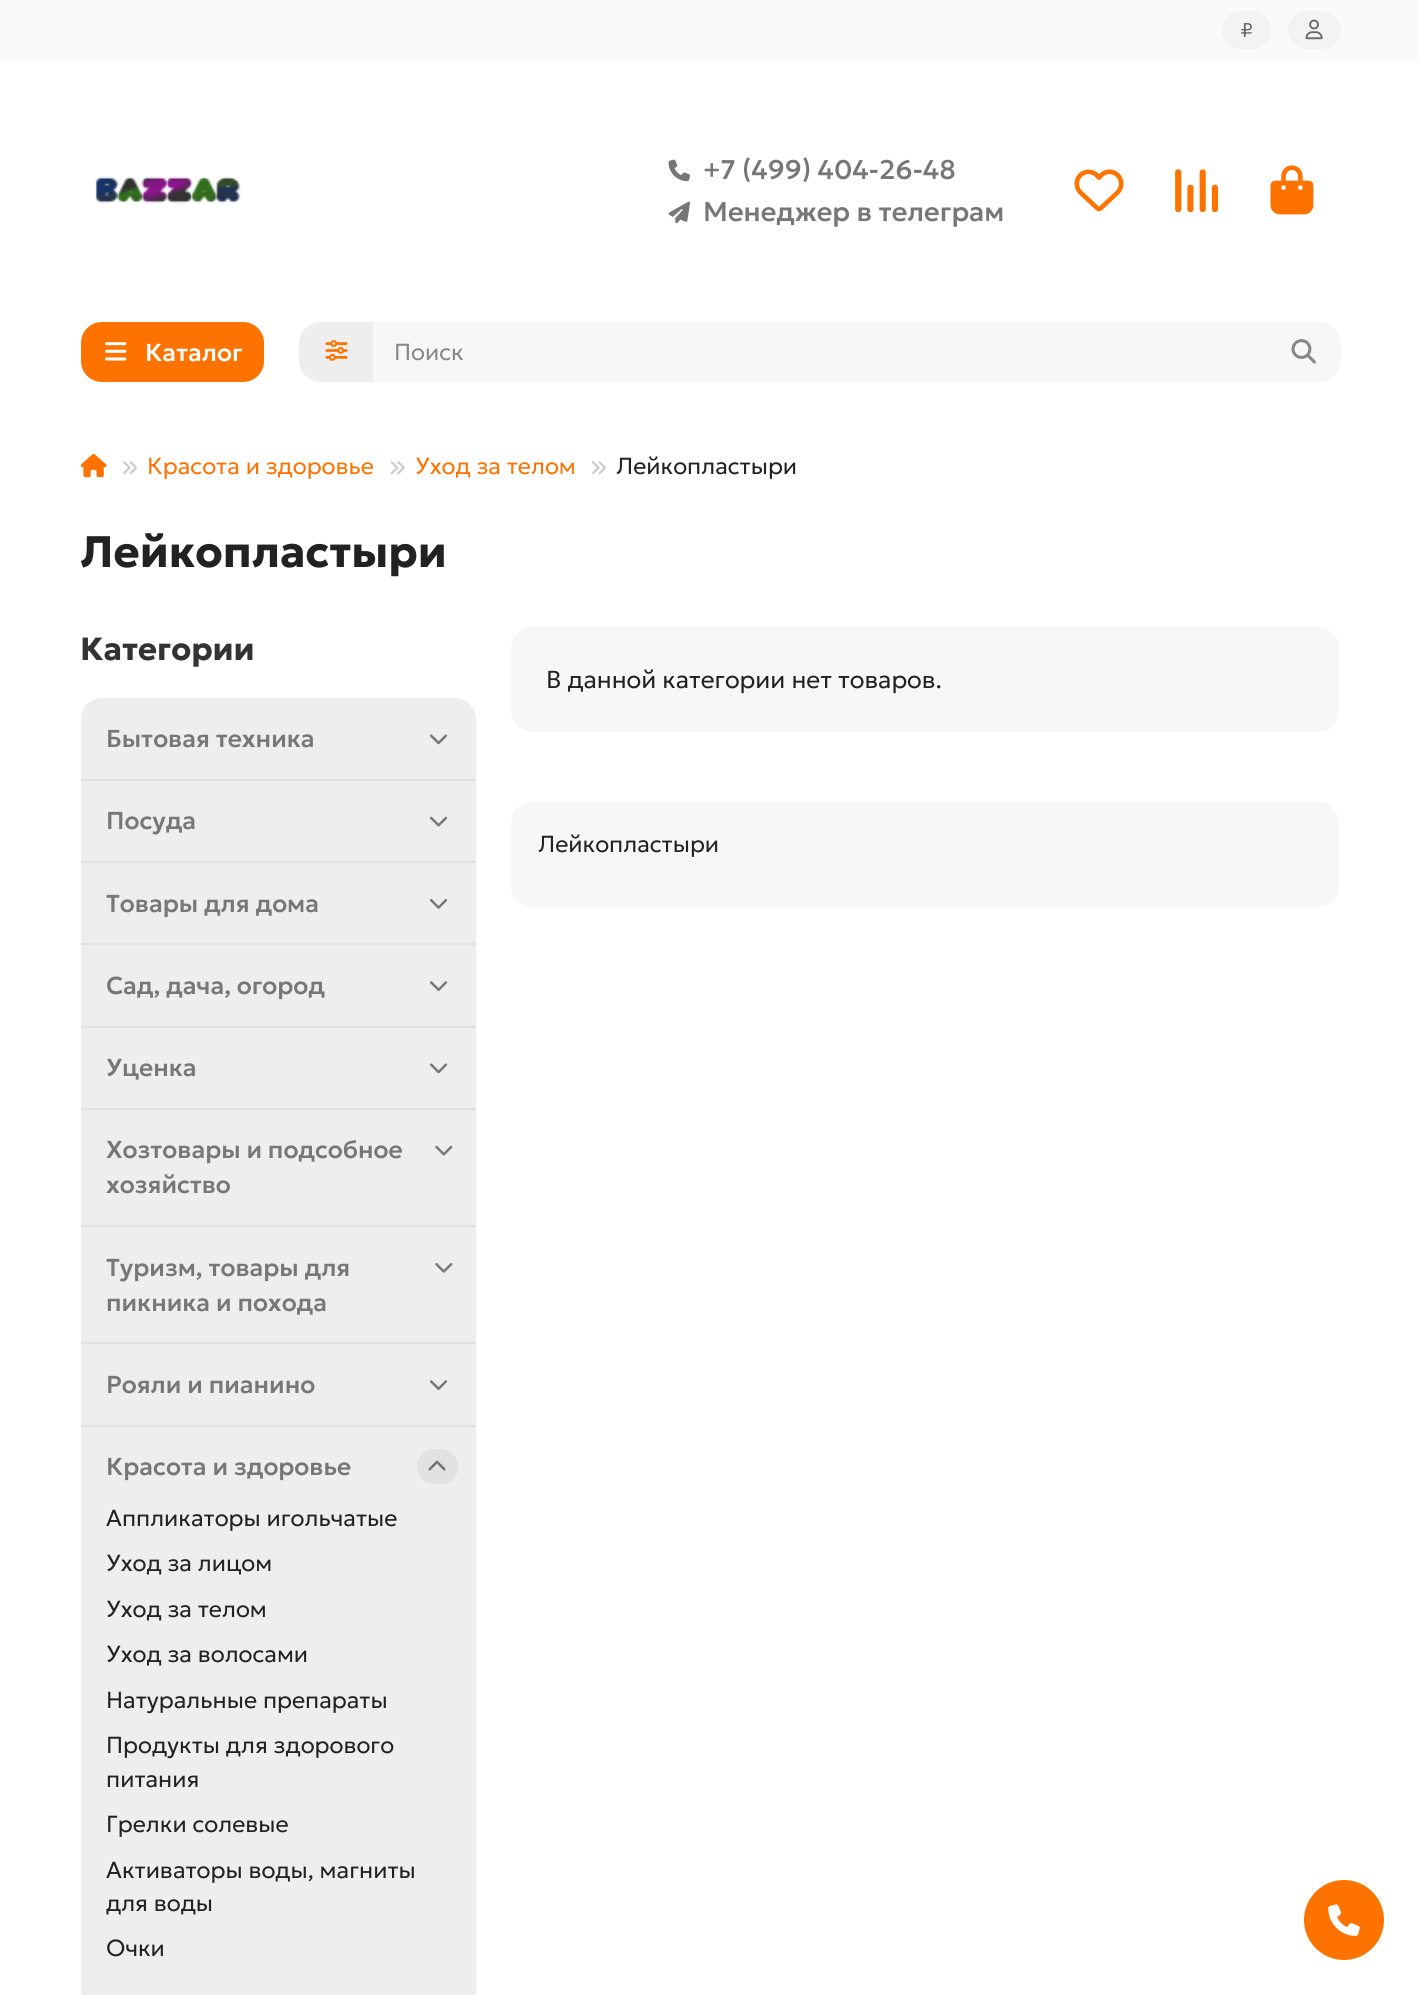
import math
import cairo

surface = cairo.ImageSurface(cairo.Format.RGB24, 1418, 1995)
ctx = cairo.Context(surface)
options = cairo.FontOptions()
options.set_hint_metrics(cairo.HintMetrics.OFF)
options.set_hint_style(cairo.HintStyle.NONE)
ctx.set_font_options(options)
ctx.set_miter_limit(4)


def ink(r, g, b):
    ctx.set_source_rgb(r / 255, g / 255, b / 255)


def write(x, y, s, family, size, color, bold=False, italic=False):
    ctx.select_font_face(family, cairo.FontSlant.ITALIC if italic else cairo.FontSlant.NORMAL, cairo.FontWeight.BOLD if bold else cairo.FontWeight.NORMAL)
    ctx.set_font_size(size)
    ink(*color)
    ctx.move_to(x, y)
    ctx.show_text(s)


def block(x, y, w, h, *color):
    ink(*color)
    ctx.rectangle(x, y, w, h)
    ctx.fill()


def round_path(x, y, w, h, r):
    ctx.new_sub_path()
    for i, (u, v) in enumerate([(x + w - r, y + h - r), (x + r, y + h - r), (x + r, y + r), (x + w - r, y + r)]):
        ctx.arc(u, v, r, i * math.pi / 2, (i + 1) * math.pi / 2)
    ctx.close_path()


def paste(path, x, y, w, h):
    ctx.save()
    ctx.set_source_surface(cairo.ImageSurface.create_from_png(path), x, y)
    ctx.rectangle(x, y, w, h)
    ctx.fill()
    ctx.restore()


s1 = dict(family="Geologica Light", size=20, color=(102, 102, 102))
s2 = dict(family="Geologica Medium", size=27, color=(119, 119, 119))
s3 = dict(family="Geologica Medium", size=24.5, color=(255, 255, 255))
s4 = dict(family="Geologica Light", size=23.25, color=(136, 136, 136))
s5 = dict(family="Geologica Light", size=23.25, color=(254, 114, 0))
s6 = dict(family="Geologica Light", size=23.25, color=(34, 34, 34))
s7 = dict(family="Geologica", size=44, color=(34, 34, 34), bold=True)
s8 = dict(family="Geologica", size=32, color=(51, 51, 51), bold=True)
s9 = dict(family="Geologica Medium", size=24.5, color=(119, 119, 119))
s10 = dict(family="Geologica Light", size=24.5, color=(34, 34, 34))

ink(255, 255, 255)
ctx.paint()
block(0, 0, 1418, 60, 250, 250, 250)
ink(243, 243, 243)
round_path(1222, 11, 49, 38, 19)
ctx.fill()
write(1240, 37, "₽", **s1)
ink(243, 243, 243)
round_path(1288, 11, 53, 38, 19)
ctx.fill()
paste("pic1.png", 1305, 19, 18, 21)
paste("pic2.png", 95, 176, 146, 28)
paste("pic3.png", 668, 159, 22, 23)
write(703, 179, "+7 (499) 404-26-48", **s2)
paste("pic4.png", 668, 201, 22, 23)
write(703, 221, "Менеджер в телеграм", **s2)
paste("pic5.png", 1074, 169, 50, 43)
paste("pic6.png", 1175, 169, 43, 44)
paste("pic7.png", 1270, 165, 44, 50)
ink(254, 114, 0)
round_path(81, 322, 183, 60, 21)
ctx.fill()
paste("pic8.png", 105, 342, 22, 19)
write(145, 361, "Каталог", **s3)
ink(238, 238, 238)
ctx.new_path()
ctx.move_to(320, 322)
ctx.line_to(373, 322)
ctx.line_to(373, 382)
ctx.line_to(320, 382)
ctx.curve_to(308.5, 382, 299, 372.5, 299, 361)
ctx.line_to(299, 343)
ctx.curve_to(299, 331.5, 308.5, 322, 320, 322)
ctx.close_path()
ctx.fill()
paste("pic9.png", 325, 340, 23, 21)
ink(247, 247, 247)
ctx.new_path()
ctx.move_to(373, 322)
ctx.line_to(1320, 322)
ctx.curve_to(1331.5, 322, 1341, 331.5, 1341, 343)
ctx.line_to(1341, 361)
ctx.curve_to(1341, 372.5, 1331.5, 382, 1320, 382)
ctx.line_to(373, 382)
ctx.close_path()
ctx.fill()
write(394, 360, "Поиск", **s4)
paste("pic10.png", 1291, 339, 25, 25)
paste("pic11.png", 81, 453, 26, 25)
paste("pic12.png", 123, 461, 14, 14)
write(147, 474, "Красота и здоровье", **s5)
paste("pic13.png", 390, 461, 15, 14)
write(415, 474, "Уход за телом", **s5)
paste("pic12.png", 592, 461, 14, 14)
write(616, 474, "Лейкопластыри", **s6)
write(80, 567, "Лейкопластыри", **s7)
write(80, 660, "Категории", **s8)
ink(238, 238, 238)
round_path(81, 698, 395, 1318, 21)
ctx.fill()
write(106, 747, "Бытовая техника", **s9)
paste("pic14.png", 430, 734, 18, 11)
block(81, 779, 395, 2, 224, 224, 224)
write(106, 829, "Посуда", **s9)
paste("pic15.png", 430, 816, 18, 11)
block(81, 861, 395, 2, 224, 224, 224)
write(106, 912, "Товары для дома", **s9)
paste("pic16.png", 430, 899, 18, 10)
block(81, 943, 395, 2, 224, 224, 224)
write(106, 994, "Сад, дача, огород", **s9)
paste("pic17.png", 430, 981, 18, 10)
block(81, 1026, 395, 2, 224, 224, 224)
write(106, 1076, "Уценка", **s9)
paste("pic14.png", 430, 1063, 18, 11)
block(81, 1108, 395, 2, 224, 224, 224)
write(106, 1158, "Хозтовары и подсобное", **s9)
paste("pic18.png", 435, 1145, 18, 11)
write(106, 1193, "хозяйство", **s9)
block(81, 1225, 395, 2, 224, 224, 224)
write(106, 1276, "Туризм, товары для", **s9)
paste("pic19.png", 435, 1263, 18, 10)
write(106, 1311, "пикника и похода", **s9)
block(81, 1342, 395, 2, 224, 224, 224)
write(106, 1393, "Рояли и пианино", **s9)
paste("pic17.png", 430, 1380, 18, 10)
block(81, 1425, 395, 2, 224, 224, 224)
write(106, 1475, "Красота и здоровье", **s9)
ink(226, 226, 226)
ctx.new_path()
ctx.move_to(441, 1484)
ctx.curve_to(437, 1484, 432, 1484, 427, 1483)
ctx.curve_to(414, 1477, 414, 1456, 427, 1450)
ctx.curve_to(432, 1449, 437, 1449, 441, 1449)
ctx.curve_to(465, 1451, 463, 1484, 441, 1484)
ctx.close_path()
ctx.fill()
paste("pic20.png", 428, 1460, 18, 11)
write(106, 1526, "Аппликаторы игольчатые", **s6)
write(106, 1571, "Уход за лицом", **s6)
write(106, 1617, "Уход за телом", **s6)
write(106, 1662, "Уход за волосами", **s6)
write(106, 1708, "Натуральные препараты", **s6)
write(106, 1753, "Продукты для здорового", **s6)
write(106, 1787, "питания", **s6)
write(106, 1832, "Грелки солевые", **s6)
write(106, 1878, "Активаторы воды, магниты", **s6)
write(106, 1911, "для воды", **s6)
write(106, 1956, "Очки", **s6)
ink(247, 247, 247)
round_path(511, 627, 828, 105, 21)
ctx.fill()
write(546, 688, "В данной категории нет товаров.", **s10)
ink(247, 247, 247)
round_path(511, 802, 828, 105, 21)
ctx.fill()
write(538, 852, "Лейкопластыри", **s6)
ink(254, 114, 0)
ctx.new_path()
ctx.arc(1344, 1920, 40, 0, 2 * math.pi)
ctx.fill()
paste("pic21.png", 1328, 1904, 32, 32)
surface.write_to_png("screenshot.png")
